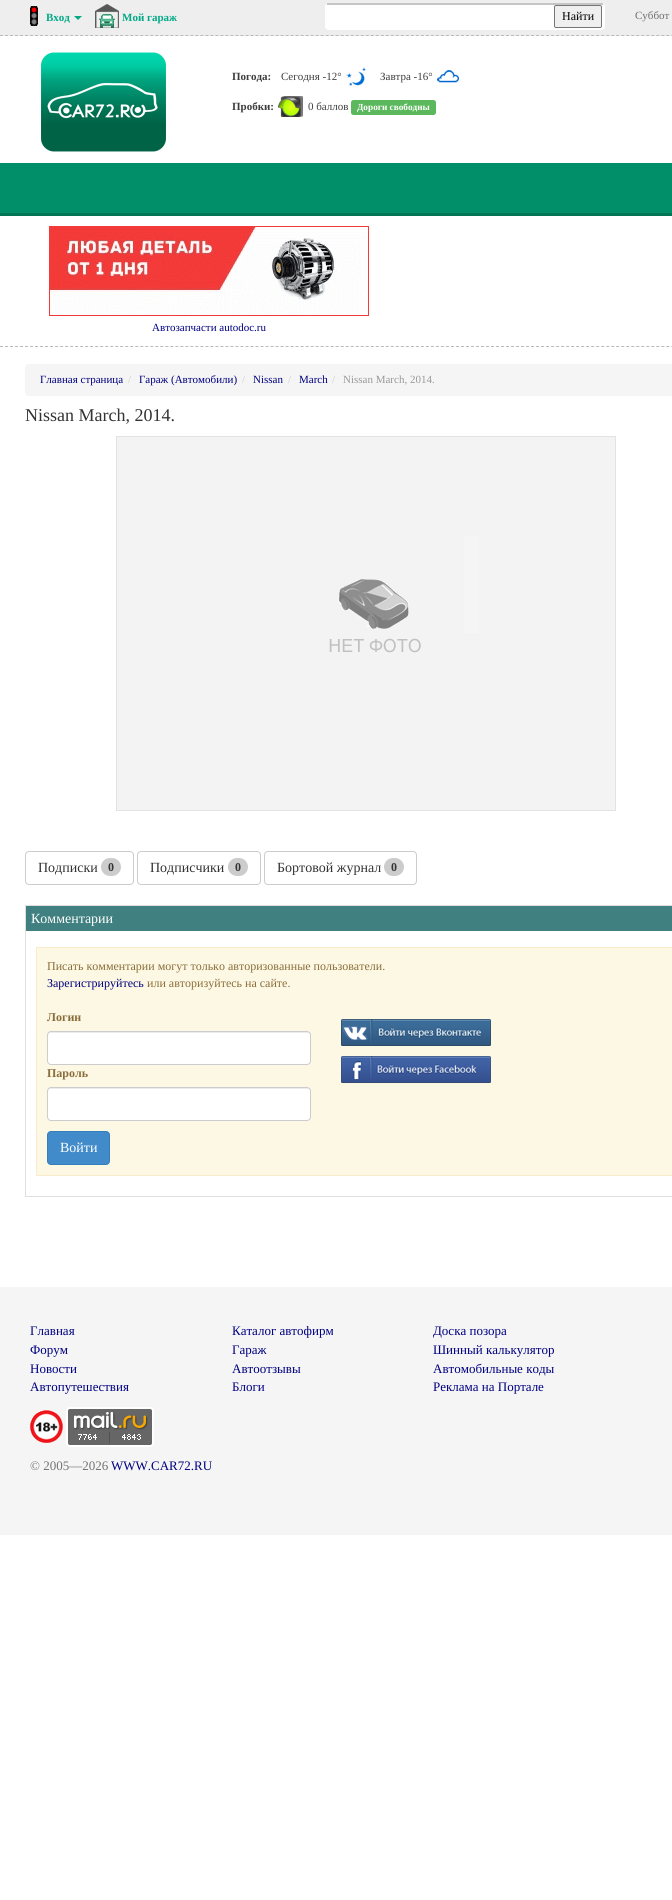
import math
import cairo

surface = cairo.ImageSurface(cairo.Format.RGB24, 672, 1900)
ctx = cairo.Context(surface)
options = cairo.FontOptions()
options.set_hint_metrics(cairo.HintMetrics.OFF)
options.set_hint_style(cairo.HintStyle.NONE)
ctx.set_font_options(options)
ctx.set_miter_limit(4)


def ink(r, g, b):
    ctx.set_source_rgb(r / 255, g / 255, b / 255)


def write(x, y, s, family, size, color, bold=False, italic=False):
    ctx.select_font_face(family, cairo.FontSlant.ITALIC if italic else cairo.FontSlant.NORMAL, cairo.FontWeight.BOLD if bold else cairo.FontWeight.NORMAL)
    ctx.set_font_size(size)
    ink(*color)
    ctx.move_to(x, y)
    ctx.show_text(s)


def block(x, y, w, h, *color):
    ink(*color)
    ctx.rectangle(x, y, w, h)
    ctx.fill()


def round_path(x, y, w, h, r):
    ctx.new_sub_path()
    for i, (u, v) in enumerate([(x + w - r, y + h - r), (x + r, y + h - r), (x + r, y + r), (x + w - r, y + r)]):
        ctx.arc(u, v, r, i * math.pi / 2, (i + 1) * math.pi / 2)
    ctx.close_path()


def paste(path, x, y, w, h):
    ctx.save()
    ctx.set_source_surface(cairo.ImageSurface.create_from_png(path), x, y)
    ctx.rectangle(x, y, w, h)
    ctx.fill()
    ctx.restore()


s1 = dict(family="Liberation Serif", size=11, color=(1, 169, 134), bold=True)
s2 = dict(family="Liberation Serif", size=12, color=(0, 0, 0))
s3 = dict(family="Liberation Serif", size=11, color=(109, 109, 109))
s4 = dict(family="Liberation Serif", size=11, color=(61, 61, 61), bold=True)
s5 = dict(family="Liberation Serif", size=11, color=(61, 61, 61))
s6 = dict(family="Liberation Serif", size=9.25, color=(255, 255, 255), bold=True)
s7 = dict(family="Liberation Serif", size=11, color=(0, 0, 128))
s8 = dict(family="Liberation Serif", size=11, color=(204, 204, 204))
s9 = dict(family="Liberation Serif", size=11, color=(153, 153, 153))
s10 = dict(family="Liberation Serif", size=18, color=(51, 51, 51))
s11 = dict(family="Liberation Serif", size=14, color=(51, 51, 51))
s12 = dict(family="Liberation Serif", size=12, color=(51, 51, 51), bold=True)
s13 = dict(family="Liberation Serif", size=14, color=(255, 255, 255))
s14 = dict(family="Liberation Serif", size=12, color=(138, 109, 59))
s15 = dict(family="Liberation Serif", size=12, color=(0, 0, 128))
s16 = dict(family="Liberation Serif", size=12, color=(138, 109, 59), bold=True)
s17 = dict(family="Liberation Serif", size=13, color=(0, 0, 128))
s18 = dict(family="Liberation Serif", size=13, color=(116, 116, 116))

ink(255, 255, 255)
ctx.paint()
block(0, 0, 672, 36, 238, 238, 238)
ctx.new_path()
ctx.move_to(0, 35.5)
ctx.line_to(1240, 35.5)
ink(186, 186, 186)
ctx.set_line_width(1)
ctx.set_dash([3, 2.01])
ctx.stroke()
paste("pic1.png", 30, 6, 8, 20)
write(46, 21, "Вход", **s1)
ctx.new_path()
ctx.move_to(74, 16)
ctx.line_to(82, 16)
ctx.line_to(78, 20)
ctx.close_path()
ctx.fill()
paste("pic2.png", 95, 4, 24, 24)
write(122, 21, "Мой гараж", **s1)
ink(255, 255, 255)
round_path(325, 3, 280, 27, 4)
ctx.fill()
block(327, 3, 276, 2, 197, 197, 197)
block(325, 5, 1, 23, 255, 255, 255)
ink(239, 239, 239)
round_path(554.5, 5.5, 47, 22, 1.5)
ctx.fill_preserve()
ink(118, 118, 118)
ctx.set_dash([])
ctx.stroke()
write(562, 20, "Найти", **s2)
write(635, 19, "Суббот", **s3)
paste("pic3.png", 41, 52, 125, 100)
write(232, 80, "Погода:", **s4)
write(281, 80, "Сегодня -12°", **s5)
paste("pic4.png", 346, 67, 20, 19)
write(380, 80, "Завтра -16°", **s5)
paste("pic5.png", 437, 70, 22, 13)
write(232, 110, "Пробки:", **s4)
paste("pic6.png", 278, 96, 25, 21)
write(308, 110, "0 баллов", **s5)
ink(92, 184, 92)
round_path(351, 100, 85, 15, 2.5)
ctx.fill()
write(357, 110, "Дороги свободны", **s6)
block(0, 163, 672, 50, 0, 143, 104)
block(0, 213, 672, 3, 0, 116, 84)
ctx.new_path()
ctx.move_to(0, 346.5)
ctx.line_to(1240, 346.5)
ink(186, 186, 186)
ctx.set_dash([3, 2.01])
ctx.stroke()
paste("pic7.png", 49, 226, 320, 90)
write(152, 331, "Автозапчасти autodoc.ru", **s7)
ink(245, 245, 245)
round_path(25, 364, 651, 32, 4)
ctx.fill()
write(40, 383, "Главная страница", **s7)
write(128, 383, "/", **s8)
write(139, 383, "Гараж (Автомобили)", **s7)
write(242, 383, "/", **s8)
write(253, 383, "Nissan", **s7)
write(288, 383, "/", **s8)
write(299, 383, "March", **s7)
write(332, 383, "/", **s8)
write(343, 383, "Nissan March, 2014.", **s9)
write(25, 421, "Nissan March, 2014.", **s10)
paste("pic8.png", 116, 436, 500, 375)
round_path(25.5, 851.5, 108, 33, 3.5)
ink(204, 204, 204)
ctx.set_dash([])
ctx.stroke()
write(38, 872, "Подписки", **s11)
ink(204, 204, 204)
round_path(101, 858, 20, 18, 9)
ctx.fill()
write(108, 871, "0", **s12)
round_path(137.5, 851.5, 123, 33, 3.5)
ink(204, 204, 204)
ctx.stroke()
write(150, 872, "Подписчики", **s11)
ink(204, 204, 204)
round_path(228, 858, 20, 18, 9)
ctx.fill()
write(235, 871, "0", **s12)
round_path(264.5, 851.5, 152, 33, 3.5)
ink(204, 204, 204)
ctx.stroke()
write(277, 872, "Бортовой журнал", **s11)
ink(204, 204, 204)
round_path(384, 858, 20, 18, 9)
ctx.fill()
write(391, 871, "0", **s12)
ctx.rectangle(25.5, 905.5, 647, 291)
ink(223, 223, 223)
ctx.stroke()
block(26, 906, 646, 25, 64, 128, 128)
write(31, 923, "Комментарии", **s13)
ink(252, 248, 227)
ctx.rectangle(36.5, 947.5, 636, 228)
ctx.fill_preserve()
ink(250, 235, 204)
ctx.stroke()
write(47, 970, "Писать комментарии могут только авторизованные пользователи.", **s14)
write(47, 987, "Зарегистрируйтесь", **s15)
write(147, 987, "или авторизуйтесь на сайте.", **s14)
write(47, 1021, "Логин", **s16)
ink(255, 255, 255)
round_path(47, 1031, 264, 34, 4)
ctx.fill()
ink(236, 236, 236)
ctx.new_path()
ctx.move_to(51, 1033)
ctx.line_to(308, 1033)
ctx.line_to(310, 1034)
ctx.line_to(310, 1036)
ctx.line_to(310, 1035)
ctx.curve_to(310, 1033, 309, 1032, 307, 1032)
ctx.line_to(51, 1032)
ctx.curve_to(49, 1032, 48, 1033, 48, 1035)
ctx.line_to(48, 1036)
ctx.curve_to(48, 1034, 49, 1033, 51, 1033)
ctx.close_path()
ctx.fill()
round_path(47.5, 1031.5, 263, 33, 3.5)
ink(204, 204, 204)
ctx.stroke()
write(47, 1077, "Пароль", **s16)
ink(255, 255, 255)
round_path(47, 1087, 264, 34, 4)
ctx.fill()
ink(236, 236, 236)
ctx.new_path()
ctx.move_to(51, 1089)
ctx.line_to(308, 1089)
ctx.line_to(310, 1090)
ctx.line_to(310, 1092)
ctx.line_to(310, 1091)
ctx.curve_to(310, 1089, 309, 1088, 307, 1088)
ctx.line_to(51, 1088)
ctx.curve_to(49, 1088, 48, 1089, 48, 1091)
ctx.line_to(48, 1092)
ctx.curve_to(48, 1090, 49, 1089, 51, 1089)
ctx.close_path()
ctx.fill()
round_path(47.5, 1087.5, 263, 33, 3.5)
ink(204, 204, 204)
ctx.stroke()
ink(66, 139, 202)
round_path(47.5, 1131.5, 62, 33, 3.5)
ctx.fill_preserve()
ink(53, 126, 189)
ctx.stroke()
write(60, 1152, "Войти", **s13)
paste("pic9.png", 341, 1019, 150, 27)
paste("pic10.png", 341, 1056, 150, 27)
block(0, 1287, 672, 248, 245, 245, 245)
write(30, 1335, "Главная", **s17)
write(30, 1354, "Форум", **s17)
write(30, 1373, "Новости", **s17)
write(30, 1391, "Автопутешествия", **s17)
write(232, 1335, "Каталог автофирм", **s17)
write(232, 1354, "Гараж", **s17)
write(232, 1373, "Автоотзывы", **s17)
write(232, 1391, "Блоги", **s17)
write(433, 1335, "Доска позора", **s17)
write(433, 1354, "Шинный калькулятор", **s17)
write(433, 1373, "Автомобильные коды", **s17)
write(433, 1391, "Реклама на Портале", **s17)
paste("pic11.png", 30, 1410, 33, 33)
paste("pic12.png", 66, 1407, 88, 40)
write(30, 1470, "© 2005—2026", **s18)
write(111, 1470, "WWW.CAR72.RU", **s17)
surface.write_to_png("screenshot.png")
